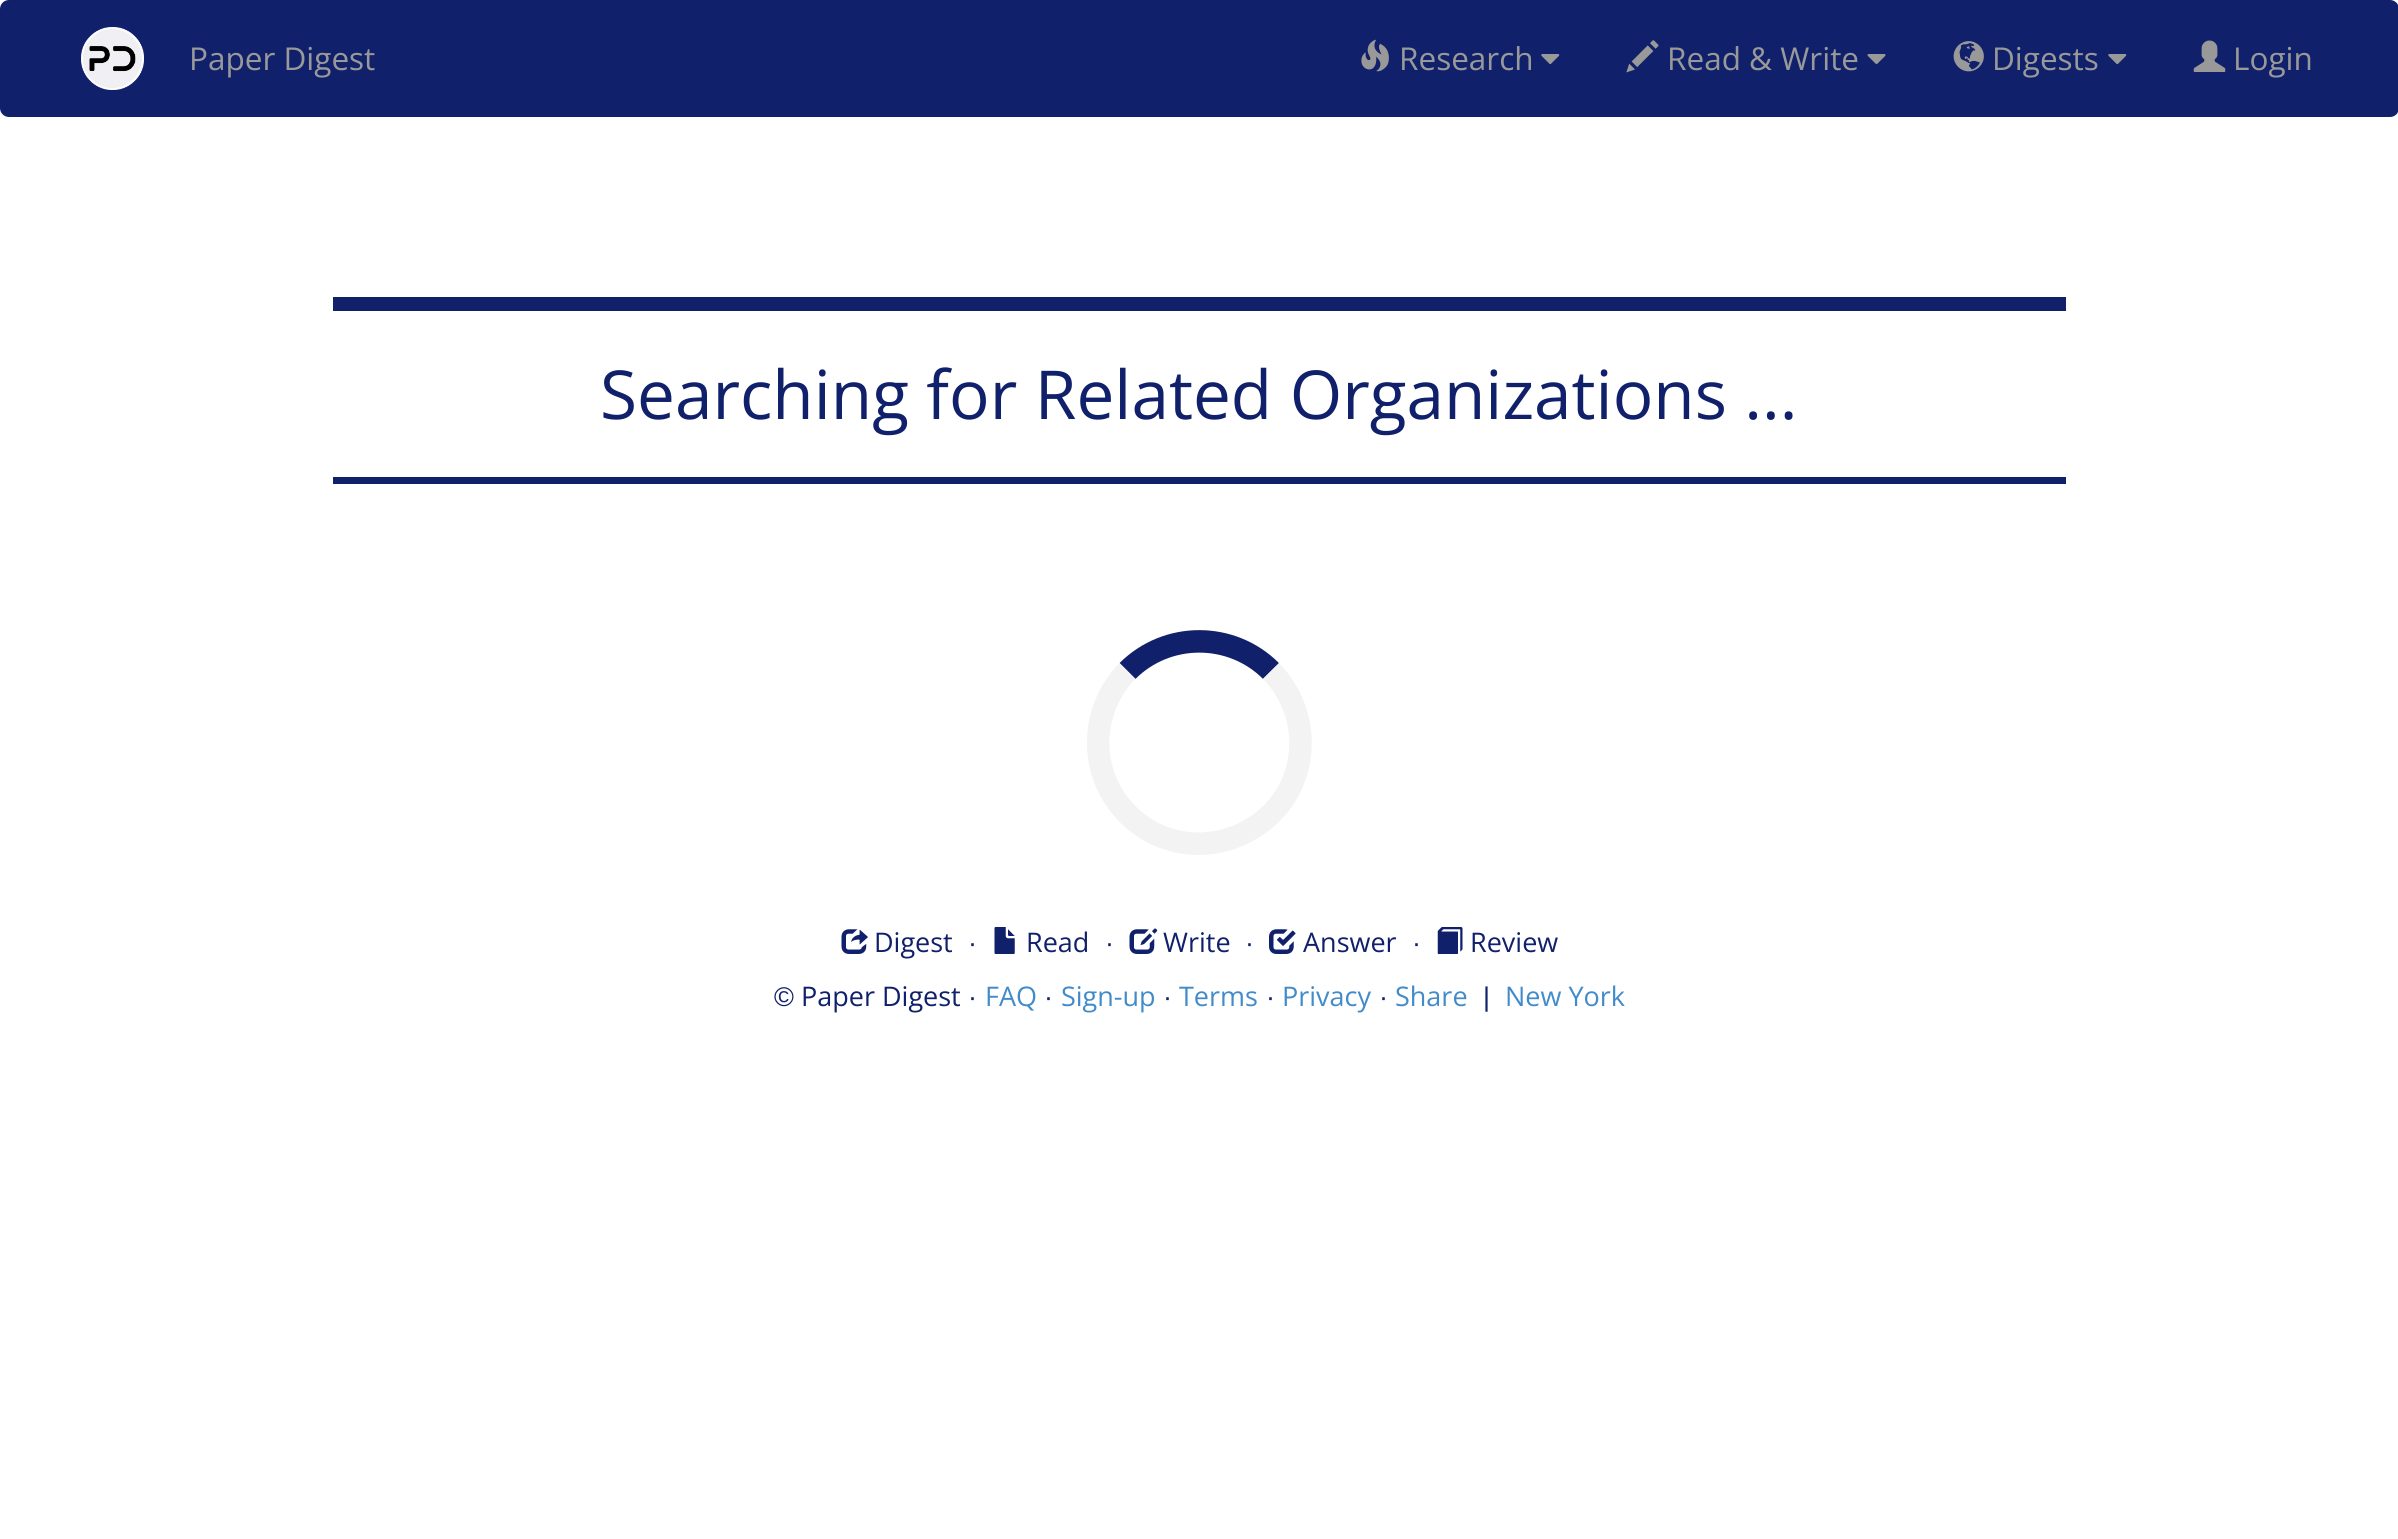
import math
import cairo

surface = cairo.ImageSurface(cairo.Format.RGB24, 2398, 1539)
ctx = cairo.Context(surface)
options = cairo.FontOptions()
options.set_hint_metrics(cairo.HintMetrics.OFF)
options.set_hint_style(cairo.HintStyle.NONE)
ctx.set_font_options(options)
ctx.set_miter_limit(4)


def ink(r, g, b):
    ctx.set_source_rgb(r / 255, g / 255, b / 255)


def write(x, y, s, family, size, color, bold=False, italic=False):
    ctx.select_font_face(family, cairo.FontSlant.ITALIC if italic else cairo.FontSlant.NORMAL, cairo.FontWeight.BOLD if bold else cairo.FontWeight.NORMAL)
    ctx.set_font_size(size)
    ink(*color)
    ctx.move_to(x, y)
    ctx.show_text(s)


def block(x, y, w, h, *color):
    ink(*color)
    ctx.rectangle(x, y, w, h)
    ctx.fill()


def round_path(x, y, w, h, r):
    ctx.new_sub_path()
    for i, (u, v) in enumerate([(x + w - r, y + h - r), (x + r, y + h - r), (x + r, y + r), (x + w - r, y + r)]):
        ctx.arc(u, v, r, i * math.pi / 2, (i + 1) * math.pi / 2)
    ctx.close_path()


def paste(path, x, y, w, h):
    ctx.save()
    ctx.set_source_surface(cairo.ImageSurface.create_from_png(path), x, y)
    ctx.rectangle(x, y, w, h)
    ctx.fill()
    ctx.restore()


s1 = dict(family="Open Sans", size=31.5, color=(153, 153, 153))
s2 = dict(family="Open Sans", size=67.5, color=(16, 32, 107))
s3 = dict(family="Open Sans", size=27, color=(16, 32, 107))
s4 = dict(family="Liberation Sans", size=27, color=(16, 32, 107))
s5 = dict(family="Open Sans", size=27, color=(66, 139, 202))

ink(255, 255, 255)
ctx.paint()
ink(16, 32, 107)
round_path(1, 1, 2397, 115, 8)
ctx.fill_preserve()
ctx.stroke()
paste("pic1.png", 81, 27, 63, 63)
write(189, 70, "Paper Digest", **s1)
paste("pic2.png", 1361, 39, 28, 33)
write(1399, 70, "Research", **s1)
paste("pic3.png", 1541, 54, 19, 11)
paste("pic4.png", 1626, 40, 33, 33)
write(1667, 70, "Read & Write", **s1)
paste("pic5.png", 1867, 54, 19, 11)
paste("pic6.png", 1953, 41, 31, 31)
write(1992, 70, "Digests", **s1)
paste("pic3.png", 2108, 54, 19, 11)
paste("pic7.png", 2193, 40, 33, 32)
write(2233, 70, "Login", **s1)
block(333, 297, 1733, 14, 16, 32, 107)
write(600, 419, "Searching for Related Organizations ...", **s2)
block(333, 477, 1733, 7, 16, 32, 107)
ctx.new_path()
ctx.move_to(1127.5, 671)
ctx.curve_to(1167, 631.5, 1231.5, 631.5, 1271, 671)
ctx.set_line_width(22.5)
ctx.stroke()
ctx.new_path()
ctx.move_to(1271, 671)
ctx.curve_to(1289.5, 690, 1300.5, 716, 1300.5, 742.5)
ctx.curve_to(1300.5, 832.5, 1191, 877.5, 1127.5, 814)
ctx.curve_to(1113.5, 800, 1104, 782, 1100, 762.5)
ctx.curve_to(1093.5, 729.5, 1104, 694.5, 1127.5, 671)
ink(243, 243, 243)
ctx.stroke()
paste("pic8.png", 841, 929, 27, 25)
write(874, 952, "Digest", **s3)
write(968, 952, "·", **s4)
paste("pic9.png", 994, 927, 21, 27)
write(1026, 952, "Read", **s3)
write(1105, 952, "·", **s4)
paste("pic10.png", 1129, 928, 29, 26)
write(1163, 952, "Write", **s3)
write(1245, 952, "·", **s4)
paste("pic11.png", 1269, 929, 27, 25)
write(1303, 952, "Answer", **s3)
write(1412, 952, "·", **s4)
paste("pic12.png", 1437, 927, 26, 27)
write(1470, 952, "Review", **s3)
write(774, 1006, "©", **s4)
write(801, 1006, "Paper Digest", **s3)
write(968, 1006, "·", **s4)
write(985, 1006, "FAQ", **s5)
write(1044, 1006, "·", **s4)
write(1061, 1006, "Sign-up", **s5)
write(1163, 1006, "·", **s4)
write(1179, 1006, "Terms", **s5)
write(1266, 1006, "·", **s4)
write(1282, 1006, "Privacy", **s5)
write(1379, 1006, "·", **s4)
write(1395, 1006, "Share", **s5)
write(1483, 1006, "|", **s4)
write(1505, 1006, "New York", **s5)
surface.write_to_png("screenshot.png")
